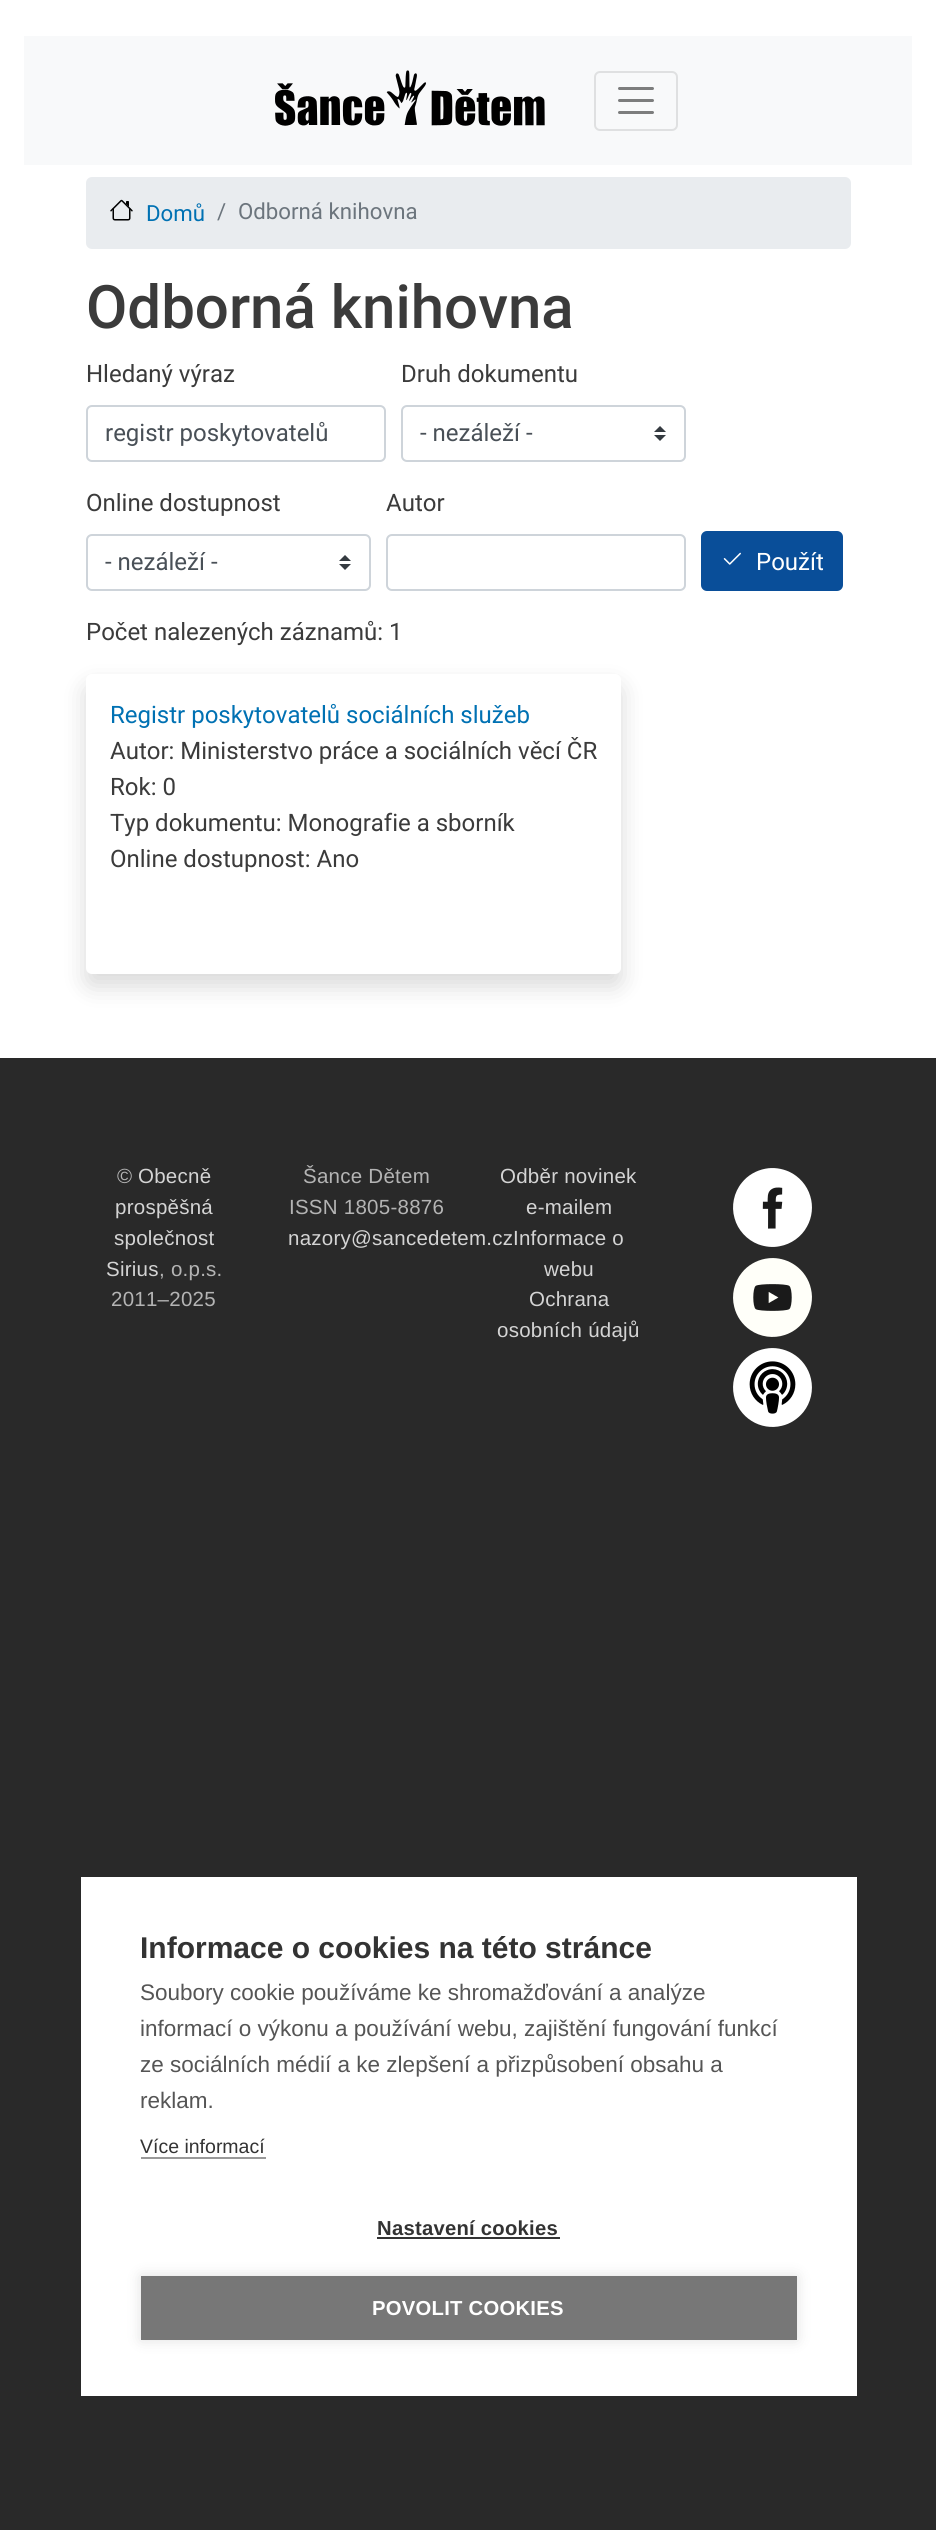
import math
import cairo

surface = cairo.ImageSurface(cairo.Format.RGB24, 936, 2530)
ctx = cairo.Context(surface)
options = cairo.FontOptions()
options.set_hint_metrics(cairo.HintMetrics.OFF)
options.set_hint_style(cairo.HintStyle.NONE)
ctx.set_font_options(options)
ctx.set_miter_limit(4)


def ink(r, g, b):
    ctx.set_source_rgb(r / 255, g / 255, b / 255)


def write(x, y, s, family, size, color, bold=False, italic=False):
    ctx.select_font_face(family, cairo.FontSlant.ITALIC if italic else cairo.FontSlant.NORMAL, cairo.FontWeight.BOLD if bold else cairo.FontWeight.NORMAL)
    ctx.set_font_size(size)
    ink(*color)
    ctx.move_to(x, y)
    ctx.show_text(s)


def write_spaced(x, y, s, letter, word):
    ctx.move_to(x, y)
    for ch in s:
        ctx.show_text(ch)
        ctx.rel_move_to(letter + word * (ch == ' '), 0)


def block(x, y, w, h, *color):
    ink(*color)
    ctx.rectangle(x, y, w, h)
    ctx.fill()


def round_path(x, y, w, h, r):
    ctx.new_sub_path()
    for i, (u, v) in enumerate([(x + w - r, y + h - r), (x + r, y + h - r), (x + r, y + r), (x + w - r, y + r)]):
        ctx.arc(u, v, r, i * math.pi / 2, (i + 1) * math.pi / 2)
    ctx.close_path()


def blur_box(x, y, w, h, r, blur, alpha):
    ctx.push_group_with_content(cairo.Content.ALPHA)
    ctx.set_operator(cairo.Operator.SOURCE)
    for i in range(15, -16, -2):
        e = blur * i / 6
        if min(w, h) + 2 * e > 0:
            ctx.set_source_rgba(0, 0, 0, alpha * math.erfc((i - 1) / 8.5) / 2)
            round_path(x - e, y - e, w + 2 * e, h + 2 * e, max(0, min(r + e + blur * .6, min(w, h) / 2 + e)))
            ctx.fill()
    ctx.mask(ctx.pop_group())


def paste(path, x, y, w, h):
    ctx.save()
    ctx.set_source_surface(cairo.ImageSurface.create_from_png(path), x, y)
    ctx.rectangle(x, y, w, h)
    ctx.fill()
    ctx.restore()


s1 = dict(family="Roboto", size=22.25, color=(0, 113, 179))
s2 = dict(family="Roboto", size=22.25, color=(108, 117, 125))
s3 = dict(family="Roboto Medium", size=60, color=(59, 59, 59))
s4 = dict(family="Roboto", size=24, color=(59, 59, 59))
s5 = dict(family="Roboto", size=24, color=(73, 80, 87))
s6 = dict(family="Roboto", size=24, color=(255, 255, 255))
s7 = dict(family="Roboto", size=24, color=(0, 113, 179))
s8 = dict(family="Liberation Sans", size=30, color=(51, 51, 51), bold=True)
s9 = dict(family="Liberation Sans", size=22.5, color=(85, 85, 85))
s10 = dict(family="Liberation Sans", size=19.5, color=(51, 51, 51))

ink(41, 41, 41)
ctx.paint()
block(0, 0, 936, 1058, 255, 255, 255)
block(24, 36, 888, 129, 248, 249, 250)
paste("pic1.png", 275, 70, 270, 56)
round_path(595, 72, 82, 58, 5)
ink(223, 224, 225)
ctx.stroke()
ctx.new_path()
ctx.move_to(619.5, 88.5)
ctx.line_to(652.5, 88.5)
ctx.move_to(619.5, 100.5)
ctx.line_to(652.5, 100.5)
ctx.move_to(619.5, 112.5)
ctx.line_to(652.5, 112.5)
ink(124, 125, 125)
ctx.set_line_width(3)
ctx.set_line_cap(cairo.LineCap.ROUND)
ctx.stroke()
ink(233, 236, 239)
round_path(86, 177, 765, 72, 6)
ctx.fill()
paste("pic2.png", 110, 199, 23, 22)
write(146, 221, "Domů", **s1)
write(217, 219, "/", **s2)
write(238, 219, "Odborná knihovna", **s2)
write(86, 328, "Odborná knihovna", **s3)
write(86, 382, "Hledaný výraz", **s4)
round_path(87, 406, 298, 55, 5)
ink(206, 212, 218)
ctx.set_line_width(2)
ctx.set_line_cap(cairo.LineCap.BUTT)
ctx.stroke()
write(105, 441, "registr poskytovatelů", **s5)
write(401, 382, "Druh dokumentu", **s4)
paste("pic3.png", 654, 426, 12, 15)
round_path(402, 406, 283, 55, 5)
ink(206, 212, 218)
ctx.stroke()
write(420, 441, "- nezáleží -", **s5)
write(86, 511, "Online dostupnost", **s4)
paste("pic3.png", 339, 555, 12, 15)
round_path(87, 535, 283, 55, 5)
ink(206, 212, 218)
ctx.stroke()
write(105, 570, "- nezáleží -", **s5)
write(386, 511, "Autor", **s4)
round_path(387, 535, 298, 55, 5)
ink(206, 212, 218)
ctx.stroke()
ink(9, 78, 153)
round_path(702, 532, 140, 58, 5)
ctx.fill_preserve()
ctx.stroke()
paste("pic4.png", 723, 552, 18, 13)
write(756, 570, "Použít", **s6)
write(86, 640, "Počet nalezených záznamů: 1", **s4)
ink(0, 0, 0)
blur_box(86, 686, 535, 300, 6, 12, 0.15)
ink(255, 255, 255)
round_path(86, 674, 535, 300, 6)
ctx.fill()
write(110, 723, "Registr poskytovatelů sociálních služeb", **s7)
write(110, 759, "Autor: Ministerstvo práce a sociálních věcí ČR", **s4)
write(110, 795, "Rok: 0", **s4)
write(110, 831, "Typ dokumentu: Monografie a sborník", **s4)
write(110, 867, "Online dostupnost: Ano", **s4)
ctx.select_font_face("Liberation Sans")
ctx.set_font_size(20.5)
ink(180, 180, 180)
write_spaced(117, 1183, "©", 0.25, 0)
ink(212, 212, 212)
write_spaced(138, 1183, "Obecně", 0.25, 0)
write_spaced(115, 1214, "prospěšná", 0.25, 0)
write_spaced(114, 1245, "společnost", 0.25, 0)
write_spaced(106, 1276, "Sirius", 0.25, 0)
ink(180, 180, 180)
write_spaced(159, 1276, ", o.p.s.", 0.25, 0)
write_spaced(111, 1306, "2011–2025", 0.25, 0)
write_spaced(303, 1183, "Šance Dětem", 0.25, 0)
write_spaced(289, 1214, "ISSN 1805-8876", 0.25, 0)
ink(212, 212, 212)
write_spaced(288, 1245, "nazory@sancedetem.cz", 0.25, 0)
write_spaced(500, 1183, "Odběr novinek", 0.25, 0)
write_spaced(526, 1214, "e-mailem", 0.25, 0)
write_spaced(513, 1245, "Informace o", 0.25, 0)
write_spaced(544, 1276, "webu", 0.25, 0)
write_spaced(529, 1306, "Ochrana", 0.25, 0)
write_spaced(497, 1337, "osobních údajů", 0.25, 0)
paste("pic5.png", 733, 1168, 79, 79)
paste("pic6.png", 733, 1258, 79, 79)
paste("pic7.png", 733, 1348, 79, 79)
block(81, 1877, 776, 519, 255, 255, 255)
write(140, 1958, "Informace o cookies na této stránce", **s8)
write(140, 2000, "Soubory cookie používáme ke shromažďování a analýze", **s9)
write(140, 2036, "informací o výkonu a používání webu, zajištění fungování funkcí", **s9)
write(140, 2072, "ze sociálních médií a ke zlepšení a přizpůsobení obsahu a", **s9)
write(140, 2108, "reklam.", **s9)
write(140, 2153, "Více informací", **s10)
block(141, 2157, 125, 2, 153, 153, 153)
ctx.select_font_face("Liberation Sans", cairo.FontSlant.NORMAL, cairo.FontWeight.BOLD)
ctx.set_font_size(20.25)
ink(51, 51, 51)
write_spaced(377, 2235, "Nastavení cookies", 0.25, 0)
block(377, 2237, 183, 2, 51, 51, 51)
ink(0, 0, 0)
blur_box(141, 2276, 656, 64, 0, 7.5, 0.12)
block(141, 2276, 656, 64, 119, 119, 119)
ink(255, 255, 255)
write_spaced(372, 2315, "POVOLIT COOKIES", 0.25, 0)
surface.write_to_png("screenshot.png")
